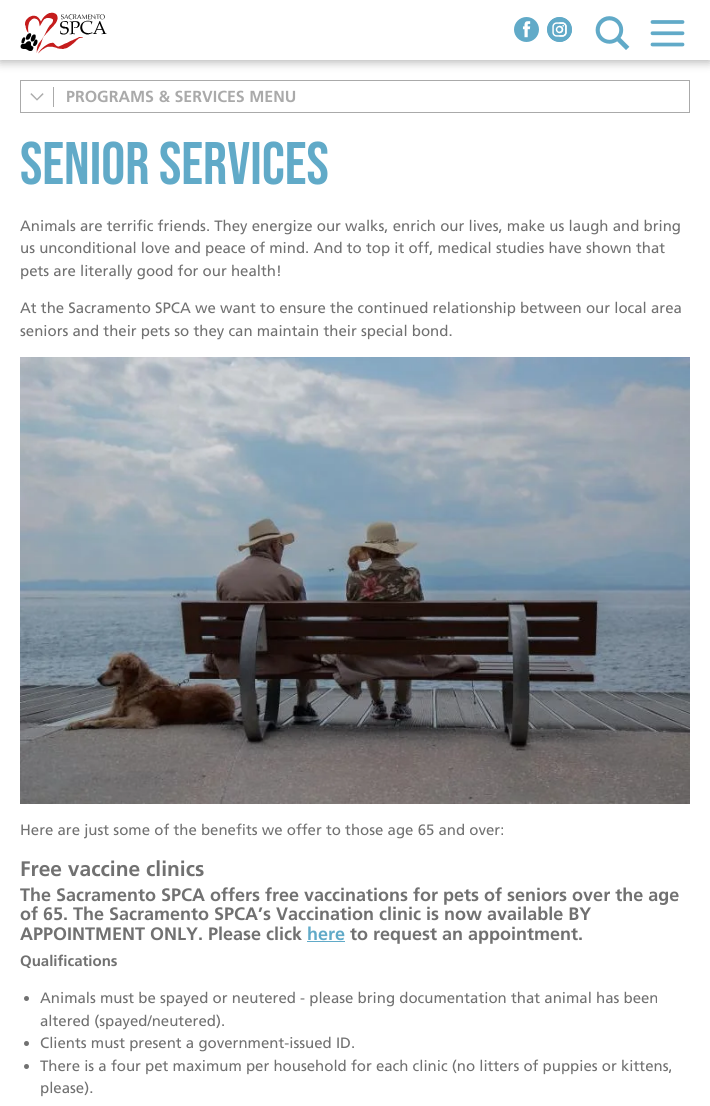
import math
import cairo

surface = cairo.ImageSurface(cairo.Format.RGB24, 710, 1106)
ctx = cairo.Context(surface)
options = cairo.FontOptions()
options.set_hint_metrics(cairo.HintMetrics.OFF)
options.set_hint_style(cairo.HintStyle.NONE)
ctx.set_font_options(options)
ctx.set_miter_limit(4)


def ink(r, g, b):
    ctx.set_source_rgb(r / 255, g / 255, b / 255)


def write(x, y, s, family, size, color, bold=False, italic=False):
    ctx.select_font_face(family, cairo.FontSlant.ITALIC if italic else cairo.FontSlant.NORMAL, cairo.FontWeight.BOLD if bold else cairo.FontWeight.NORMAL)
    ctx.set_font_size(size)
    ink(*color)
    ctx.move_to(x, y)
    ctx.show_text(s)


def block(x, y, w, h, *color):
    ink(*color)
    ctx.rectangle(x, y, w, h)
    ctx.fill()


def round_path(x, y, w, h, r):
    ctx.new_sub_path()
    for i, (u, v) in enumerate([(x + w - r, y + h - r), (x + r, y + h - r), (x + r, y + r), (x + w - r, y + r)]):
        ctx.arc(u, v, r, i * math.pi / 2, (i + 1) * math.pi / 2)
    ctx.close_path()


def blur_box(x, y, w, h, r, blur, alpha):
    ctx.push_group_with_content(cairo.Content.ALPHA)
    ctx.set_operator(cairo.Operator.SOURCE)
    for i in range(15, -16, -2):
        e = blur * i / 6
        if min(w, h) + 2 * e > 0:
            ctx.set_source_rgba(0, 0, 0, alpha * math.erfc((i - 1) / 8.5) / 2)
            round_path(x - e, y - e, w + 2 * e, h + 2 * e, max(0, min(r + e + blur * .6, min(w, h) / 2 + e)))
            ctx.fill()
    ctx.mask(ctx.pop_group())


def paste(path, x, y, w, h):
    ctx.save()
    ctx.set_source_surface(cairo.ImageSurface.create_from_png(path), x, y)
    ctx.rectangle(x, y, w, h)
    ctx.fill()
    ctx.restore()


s1 = dict(family="Frutiger", size=16, color=(170, 170, 170), bold=True)
s2 = dict(family="Bebas Neue", size=60, color=(97, 170, 200))
s3 = dict(family="Frutiger", size=15, color=(113, 113, 113))
s4 = dict(family="Frutiger", size=21, color=(113, 113, 113), bold=True)
s5 = dict(family="Frutiger", size=18, color=(113, 113, 113), bold=True)
s6 = dict(family="Frutiger", size=18, color=(97, 170, 200), bold=True)
s7 = dict(family="Frutiger", size=15, color=(113, 113, 113), bold=True)

ink(255, 255, 255)
ctx.paint()
ink(0, 0, 0)
blur_box(0, 2, 710, 60, 0, 5, 0.3)
block(0, 0, 710, 60, 255, 255, 255)
paste("pic1.png", 20, 12, 87, 42)
ink(97, 170, 200)
ctx.arc(526.5, 29.5, 12.5, 0, 2 * math.pi)
ctx.fill()
paste("pic2.png", 522, 21, 9, 17)
ctx.arc(559.5, 29.5, 12.5, 0, 2 * math.pi)
ctx.fill()
paste("pic3.png", 547, 17, 25, 25)
paste("pic4.png", 595, 16, 35, 34)
paste("pic5.png", 650, 20, 35, 27)
ctx.rectangle(20.5, 80.5, 669, 32)
ink(170, 170, 170)
ctx.set_line_width(1)
ctx.stroke()
block(53, 87, 1, 20, 170, 170, 170)
paste("pic6.png", 30, 93, 14, 8)
write(66, 102, "PROGRAMS & SERVICES MENU", **s1)
write(20, 184, "Senior Services", **s2)
write(20, 231, "Animals are terrific friends. They energize our walks, enrich our lives, make us laugh and bring", **s3)
write(20, 253, "us unconditional love and peace of mind. And to top it off, medical studies have shown that", **s3)
write(20, 276, "pets are literally good for our health!", **s3)
write(20, 313, "At the Sacramento SPCA we want to ensure the continued relationship between our local area", **s3)
write(20, 336, "seniors and their pets so they can maintain their special bond.", **s3)
paste("pic7.png", 20, 357, 670, 447)
write(20, 835, "Here are just some of the benefits we offer to those age 65 and over:", **s3)
write(20, 876, "Free vaccine clinics", **s4)
write(20, 901, "The Sacramento SPCA offers free vaccinations for pets of seniors over the age", **s5)
write(20, 920, "of 65. The Sacramento SPCA’s Vaccination clinic is now available BY", **s5)
write(20, 940, "APPOINTMENT ONLY. Please click", **s5)
write(307, 940, "here", **s6)
block(307, 941, 38, 1, 97, 170, 200)
write(350, 940, "to request an appointment.", **s5)
write(20, 966, "Qualifications", **s7)
ctx.new_path()
ctx.arc(26.5, 998.5, 2.5, 0, 2 * math.pi)
ctx.fill()
write(40, 1003, "Animals must be spayed or neutered - please bring documentation that animal has been", **s3)
write(40, 1026, "altered (spayed/neutered).", **s3)
ctx.new_path()
ctx.arc(26.5, 1043.5, 2.5, 0, 2 * math.pi)
ctx.fill()
write(40, 1048, "Clients must present a government-issued ID.", **s3)
ctx.new_path()
ctx.arc(26.5, 1066.5, 2.5, 0, 2 * math.pi)
ctx.fill()
write(40, 1071, "There is a four pet maximum per household for each clinic (no litters of puppies or kittens,", **s3)
write(40, 1093, "please).", **s3)
surface.write_to_png("screenshot.png")
